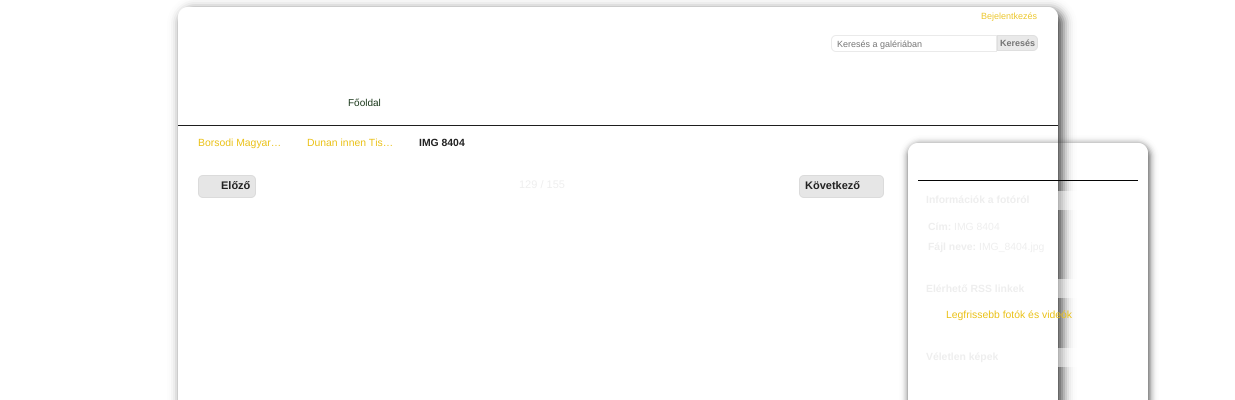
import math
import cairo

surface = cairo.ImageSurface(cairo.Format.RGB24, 1235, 400)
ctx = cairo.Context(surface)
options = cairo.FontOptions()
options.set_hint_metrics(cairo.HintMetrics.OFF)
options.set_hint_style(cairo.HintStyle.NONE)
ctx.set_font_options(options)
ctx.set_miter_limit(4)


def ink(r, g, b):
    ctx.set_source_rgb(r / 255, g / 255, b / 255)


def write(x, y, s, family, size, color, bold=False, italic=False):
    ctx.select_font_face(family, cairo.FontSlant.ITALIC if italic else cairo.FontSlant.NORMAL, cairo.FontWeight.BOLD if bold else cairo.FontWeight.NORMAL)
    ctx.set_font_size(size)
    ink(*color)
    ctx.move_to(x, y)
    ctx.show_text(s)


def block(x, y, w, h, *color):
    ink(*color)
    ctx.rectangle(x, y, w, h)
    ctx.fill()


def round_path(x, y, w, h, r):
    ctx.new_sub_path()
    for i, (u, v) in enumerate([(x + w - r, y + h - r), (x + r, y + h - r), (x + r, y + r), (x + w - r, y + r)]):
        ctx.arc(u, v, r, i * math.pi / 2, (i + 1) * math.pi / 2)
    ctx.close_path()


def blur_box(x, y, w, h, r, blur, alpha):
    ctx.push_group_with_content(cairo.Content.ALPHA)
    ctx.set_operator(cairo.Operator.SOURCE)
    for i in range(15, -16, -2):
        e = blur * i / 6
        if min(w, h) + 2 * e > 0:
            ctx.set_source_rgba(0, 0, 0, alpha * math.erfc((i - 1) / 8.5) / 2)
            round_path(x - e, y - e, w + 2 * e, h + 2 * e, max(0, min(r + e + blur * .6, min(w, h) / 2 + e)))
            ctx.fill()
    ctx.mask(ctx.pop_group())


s1 = dict(family="Liberation Sans", size=9, color=(236, 199, 46))
s2 = dict(family="Liberation Sans", size=9, color=(117, 117, 117))
s3 = dict(family="Liberation Sans", size=9, color=(117, 117, 117), bold=True)
s4 = dict(family="Liberation Sans", size=10, color=(26, 56, 26))
s5 = dict(family="Liberation Sans", size=10.4, color=(234, 193, 23))
s6 = dict(family="Liberation Sans", size=10.4, color=(34, 34, 34), bold=True)
s7 = dict(family="Liberation Sans", size=11, color=(34, 34, 34), bold=True)
s8 = dict(family="Liberation Sans", size=11, color=(238, 238, 238))
s9 = dict(family="Liberation Sans", size=10.4, color=(238, 238, 238), bold=True)
s10 = dict(family="Liberation Sans", size=10.4, color=(238, 238, 238))

ink(255, 255, 255)
ctx.paint()
ctx.save()
ctx.set_fill_rule(cairo.FillRule.EVEN_ODD)
ctx.new_path()
ctx.move_to(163, 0)
ctx.line_to(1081, 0)
ctx.line_to(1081, 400)
ctx.line_to(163, 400)
ctx.close_path()
ctx.move_to(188, 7)
ctx.line_to(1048, 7)
ctx.curve_to(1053.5, 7, 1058, 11.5, 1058, 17)
ctx.line_to(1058, 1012)
ctx.curve_to(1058, 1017.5, 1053.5, 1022, 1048, 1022)
ctx.line_to(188, 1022)
ctx.curve_to(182.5, 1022, 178, 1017.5, 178, 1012)
ctx.line_to(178, 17)
ctx.curve_to(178, 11.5, 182.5, 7, 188, 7)
ctx.close_path()
ctx.clip()
ink(51, 51, 51)
blur_box(182, 11, 880, 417, 10, 6, 1)
ctx.restore()
block(178, 125, 880, 1, 30, 30, 30)
write(981, 19, "Bejelentkezés", **s1)
ctx.new_path()
ctx.move_to(836, 35.5)
ctx.line_to(996.5, 35.5)
ctx.line_to(996.5, 51.5)
ctx.line_to(836, 51.5)
ctx.curve_to(833.5, 51.5, 831.5, 49.5, 831.5, 47)
ctx.line_to(831.5, 40)
ctx.curve_to(831.5, 37.5, 833.5, 35.5, 836, 35.5)
ctx.close_path()
ink(234, 234, 234)
ctx.set_line_width(1)
ctx.stroke()
write(837, 47, "Keresés a galériában", **s2)
ink(233, 233, 233)
ctx.new_path()
ctx.move_to(997.5, 35.5)
ctx.line_to(1033, 35.5)
ctx.curve_to(1035.5, 35.5, 1037.5, 37.5, 1037.5, 40)
ctx.line_to(1037.5, 46)
ctx.curve_to(1037.5, 48.5, 1035.5, 50.5, 1033, 50.5)
ctx.line_to(997.5, 50.5)
ctx.close_path()
ctx.fill_preserve()
ink(223, 223, 223)
ctx.stroke()
write(1000, 46, "Keresés", **s3)
write(348, 106, "Főoldal", **s4)
write(198, 146, "Borsodi Magyar…", **s5)
write(307, 146, "Dunan innen Tis…", **s5)
write(419, 146, "IMG 8404", **s6)
ink(230, 230, 230)
round_path(198.5, 175.5, 57, 22, 4.5)
ctx.fill_preserve()
ink(219, 219, 219)
ctx.stroke()
write(221, 189, "Előző", **s7)
write(519, 188, "129 / 155", **s8)
ink(230, 230, 230)
round_path(799.5, 175.5, 84, 22, 4.5)
ctx.fill_preserve()
ink(219, 219, 219)
ctx.stroke()
write(805, 189, "Következő", **s7)
ctx.save()
ctx.set_fill_rule(cairo.FillRule.EVEN_ODD)
ctx.new_path()
ctx.move_to(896, 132)
ctx.line_to(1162, 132)
ctx.line_to(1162, 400)
ctx.line_to(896, 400)
ctx.close_path()
ctx.move_to(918, 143)
ctx.line_to(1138, 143)
ctx.curve_to(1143.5, 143, 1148, 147.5, 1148, 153)
ctx.line_to(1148, 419)
ctx.curve_to(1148, 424.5, 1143.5, 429, 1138, 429)
ctx.line_to(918, 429)
ctx.curve_to(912.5, 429, 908, 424.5, 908, 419)
ctx.line_to(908, 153)
ctx.curve_to(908, 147.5, 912.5, 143, 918, 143)
ctx.close_path()
ctx.clip()
ink(51, 51, 51)
blur_box(909, 145, 240, 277, 10, 4, 1)
ctx.restore()
block(918, 180, 220, 1, 5, 5, 5)
ctx.set_source_rgba(1, 1, 1, 0.5)
round_path(918, 191, 220, 19, 5)
ctx.fill()
write(926, 203, "Információk a fotóról", **s9)
write(928, 230, "Cím:", **s9)
write(954, 230, "IMG 8404", **s10)
write(928, 250, "Fájl neve:", **s9)
write(979, 250, "IMG_8404.jpg", **s10)
ctx.set_source_rgba(1, 1, 1, 0.5)
round_path(918, 279, 220, 19, 5)
ctx.fill()
write(926, 292, "Elérhető RSS linkek", **s9)
write(946, 318, "Legfrissebb fotók és videók", **s5)
ctx.set_source_rgba(1, 1, 1, 0.5)
round_path(918, 348, 220, 19, 5)
ctx.fill()
write(926, 360, "Véletlen képek", **s9)
surface.write_to_png("screenshot.png")
